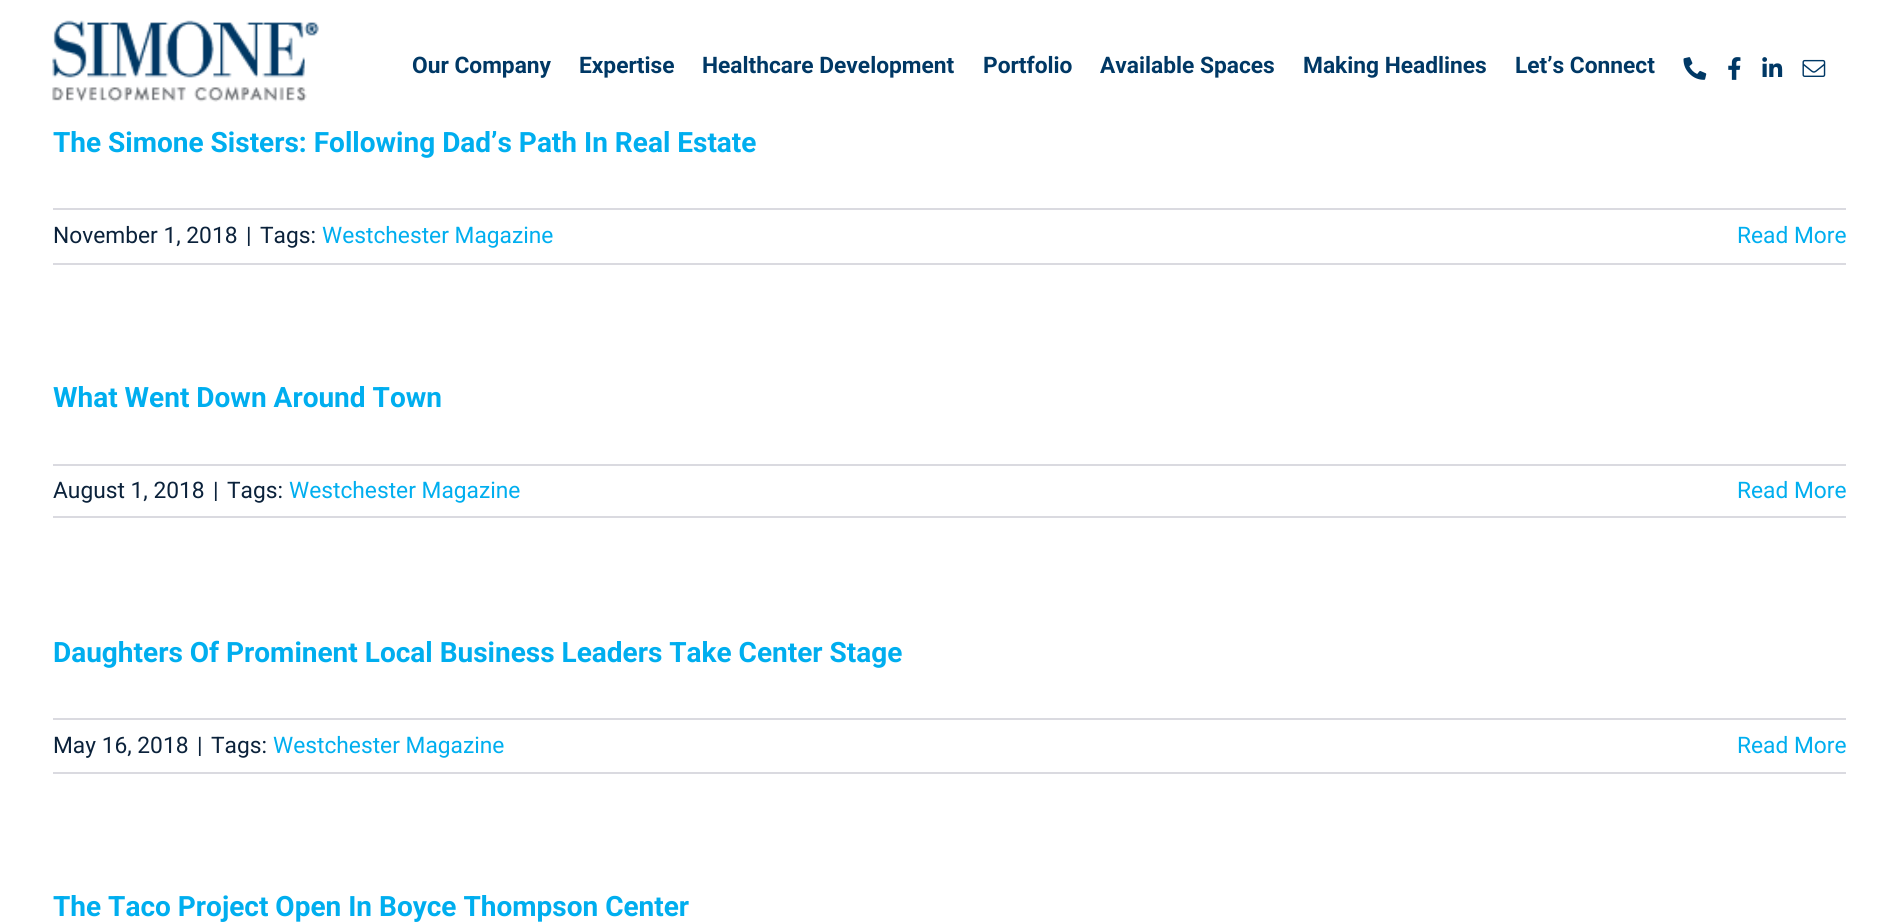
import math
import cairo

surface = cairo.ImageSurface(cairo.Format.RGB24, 1898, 924)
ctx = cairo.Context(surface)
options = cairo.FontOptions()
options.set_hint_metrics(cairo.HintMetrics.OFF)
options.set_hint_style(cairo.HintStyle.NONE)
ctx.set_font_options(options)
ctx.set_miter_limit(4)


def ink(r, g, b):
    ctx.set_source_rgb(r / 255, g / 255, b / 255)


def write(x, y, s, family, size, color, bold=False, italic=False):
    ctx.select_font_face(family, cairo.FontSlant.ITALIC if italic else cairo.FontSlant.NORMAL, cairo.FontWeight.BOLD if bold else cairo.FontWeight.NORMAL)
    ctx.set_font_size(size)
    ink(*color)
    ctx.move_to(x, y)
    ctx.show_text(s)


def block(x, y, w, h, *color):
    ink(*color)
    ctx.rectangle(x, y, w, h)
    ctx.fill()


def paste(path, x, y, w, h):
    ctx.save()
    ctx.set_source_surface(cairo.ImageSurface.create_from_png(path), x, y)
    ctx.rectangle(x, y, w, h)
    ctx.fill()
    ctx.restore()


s1 = dict(family="Roboto", size=22.75, color=(0, 56, 101), bold=True)
s2 = dict(family="Roboto", size=28, color=(0, 174, 239), bold=True)
s3 = dict(family="Roboto", size=22.75, color=(11, 34, 59))
s4 = dict(family="Roboto", size=22.75, color=(0, 174, 239))

ink(255, 255, 255)
ctx.paint()
paste("pic1.png", 52, 20, 267, 82)
write(412, 73, "Our Company", **s1)
write(579, 73, "Expertise", **s1)
write(702, 73, "Healthcare Development", **s1)
write(983, 73, "Portfolio", **s1)
write(1100, 73, "Available Spaces", **s1)
write(1303, 73, "Making Headlines", **s1)
write(1515, 73, "Let’s Connect", **s1)
paste("pic2.png", 1683, 57, 24, 23)
paste("pic3.png", 1728, 57, 13, 23)
paste("pic4.png", 1762, 57, 21, 20)
paste("pic5.png", 1802, 59, 24, 18)
write(53, 152, "The Simone Sisters: Following Dad’s Path In Real Estate", **s2)
block(53, 208, 1793, 2, 218, 218, 224)
block(53, 263, 1793, 2, 218, 218, 224)
write(53, 243, "November 1, 2018", **s3)
write(246, 243, "|", **s3)
write(260, 243, "Tags:", **s3)
write(322, 243, "Westchester Magazine", **s4)
write(1737, 243, "Read More", **s4)
write(53, 407, "What Went Down Around Town", **s2)
block(53, 464, 1793, 2, 218, 218, 224)
block(53, 516, 1793, 2, 218, 218, 224)
write(53, 498, "August 1, 2018", **s3)
write(213, 498, "|", **s3)
write(227, 498, "Tags:", **s3)
write(289, 498, "Westchester Magazine", **s4)
write(1737, 498, "Read More", **s4)
write(53, 662, "Daughters Of Prominent Local Business Leaders Take Center Stage", **s2)
block(53, 718, 1793, 2, 218, 218, 224)
block(53, 772, 1793, 2, 218, 218, 224)
write(53, 753, "May 16, 2018", **s3)
write(197, 753, "|", **s3)
write(211, 753, "Tags:", **s3)
write(273, 753, "Westchester Magazine", **s4)
write(1737, 753, "Read More", **s4)
write(53, 916, "The Taco Project Open In Boyce Thompson Center", **s2)
surface.write_to_png("screenshot.png")
